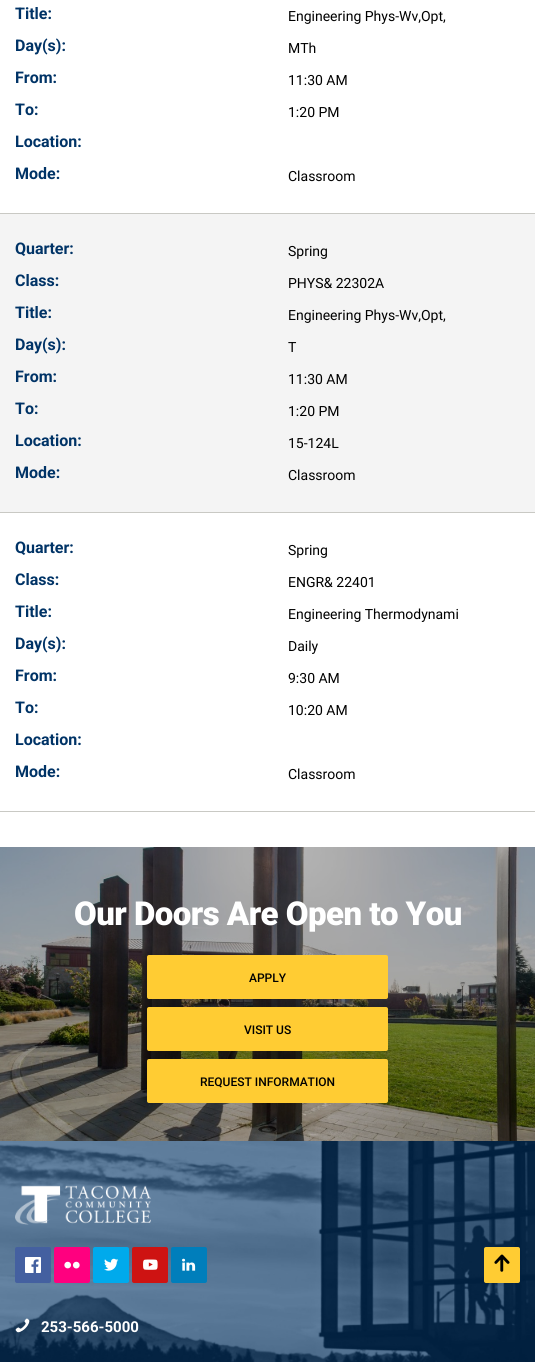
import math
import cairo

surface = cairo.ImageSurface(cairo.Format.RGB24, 535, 1362)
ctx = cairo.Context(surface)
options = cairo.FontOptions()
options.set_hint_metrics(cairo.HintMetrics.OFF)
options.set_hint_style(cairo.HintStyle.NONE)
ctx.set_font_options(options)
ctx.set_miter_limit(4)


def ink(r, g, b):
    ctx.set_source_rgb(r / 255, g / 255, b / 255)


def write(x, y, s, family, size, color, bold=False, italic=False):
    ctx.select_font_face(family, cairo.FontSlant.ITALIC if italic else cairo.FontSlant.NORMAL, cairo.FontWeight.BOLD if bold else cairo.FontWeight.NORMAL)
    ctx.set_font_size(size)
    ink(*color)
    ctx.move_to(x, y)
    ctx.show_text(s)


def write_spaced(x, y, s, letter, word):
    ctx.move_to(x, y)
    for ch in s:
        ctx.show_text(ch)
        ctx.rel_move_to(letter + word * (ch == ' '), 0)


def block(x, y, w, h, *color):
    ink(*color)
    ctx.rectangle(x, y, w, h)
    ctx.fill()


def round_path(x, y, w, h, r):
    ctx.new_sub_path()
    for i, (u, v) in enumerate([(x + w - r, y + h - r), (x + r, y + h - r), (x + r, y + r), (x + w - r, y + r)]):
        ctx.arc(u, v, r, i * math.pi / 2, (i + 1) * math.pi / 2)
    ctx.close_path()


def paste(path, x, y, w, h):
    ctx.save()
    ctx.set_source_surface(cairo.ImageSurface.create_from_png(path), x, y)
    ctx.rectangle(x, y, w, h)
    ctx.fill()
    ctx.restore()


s1 = dict(family="Roboto", size=16, color=(0, 51, 102), bold=True)
s2 = dict(family="Roboto", size=14, color=(0, 0, 0))
s3 = dict(family="Roboto Medium", size=12, color=(0, 0, 0))
s4 = dict(family="Roboto", size=15, color=(255, 255, 255), bold=True)

ink(255, 255, 255)
ctx.paint()
block(0, 213, 535, 1, 201, 201, 196)
write(15, 19, "Title:", **s1)
write(288, 21, "Engineering Phys-Wv,Opt,", **s2)
write(15, 51, "Day(s):", **s1)
write(288, 53, "MTh", **s2)
write(15, 83, "From:", **s1)
write(288, 85, "11:30 AM", **s2)
write(15, 115, "To:", **s1)
write(288, 117, "1:20 PM", **s2)
write(15, 147, "Location:", **s1)
write(15, 179, "Mode:", **s1)
write(288, 181, "Classroom", **s2)
block(0, 214, 535, 298, 244, 244, 244)
block(0, 512, 535, 1, 201, 201, 196)
write(15, 254, "Quarter:", **s1)
write(288, 256, "Spring", **s2)
write(15, 286, "Class:", **s1)
write(288, 288, "PHYS& 22302A", **s2)
write(15, 318, "Title:", **s1)
write(288, 320, "Engineering Phys-Wv,Opt,", **s2)
write(15, 350, "Day(s):", **s1)
write(288, 352, "T", **s2)
write(15, 382, "From:", **s1)
write(288, 384, "11:30 AM", **s2)
write(15, 414, "To:", **s1)
write(288, 416, "1:20 PM", **s2)
write(15, 446, "Location:", **s1)
write(288, 448, "15-124L", **s2)
write(15, 478, "Mode:", **s1)
write(288, 480, "Classroom", **s2)
block(0, 811, 535, 1, 201, 201, 196)
write(15, 553, "Quarter:", **s1)
write(288, 555, "Spring", **s2)
write(15, 585, "Class:", **s1)
write(288, 587, "ENGR& 22401", **s2)
write(15, 617, "Title:", **s1)
write(288, 619, "Engineering Thermodynami", **s2)
write(15, 649, "Day(s):", **s1)
write(288, 651, "Daily", **s2)
write(15, 681, "From:", **s1)
write(288, 683, "9:30 AM", **s2)
write(15, 713, "To:", **s1)
write(288, 715, "10:20 AM", **s2)
write(15, 745, "Location:", **s1)
write(15, 777, "Mode:", **s1)
write(288, 779, "Classroom", **s2)
paste("pic1.png", 0, 847, 535, 294)
ctx.select_font_face("Roboto Black")
ctx.set_font_size(33)
ink(255, 255, 255)
write_spaced(74, 925, "Our Doors Are Open to You", -0.55, 0)
ink(255, 204, 51)
round_path(147, 955, 241, 44, 2)
ctx.fill()
write(249, 982, "APPLY", **s3)
ink(255, 204, 51)
round_path(147, 1007, 241, 44, 2)
ctx.fill()
write(244, 1034, "VISIT US", **s3)
ink(255, 204, 51)
round_path(147, 1059, 241, 44, 2)
ctx.fill()
write(200, 1086, "REQUEST INFORMATION", **s3)
paste("pic2.png", 0, 1141, 535, 221)
paste("pic3.png", 15, 1185, 136, 40)
ink(68, 96, 160)
round_path(15, 1247, 36, 36, 2)
ctx.fill()
paste("pic4.png", 25, 1257, 16, 16)
ink(255, 0, 127)
round_path(54, 1247, 36, 36, 2)
ctx.fill()
paste("pic5.png", 64, 1261, 16, 8)
ink(0, 170, 236)
round_path(93, 1247, 36, 36, 2)
ctx.fill()
paste("pic6.png", 104, 1258, 15, 13)
ink(206, 19, 18)
round_path(132, 1247, 36, 36, 2)
ctx.fill()
paste("pic7.png", 143, 1259, 15, 11)
ink(0, 126, 187)
round_path(171, 1247, 36, 36, 2)
ctx.fill()
paste("pic8.png", 182, 1258, 14, 13)
ink(255, 204, 51)
round_path(484, 1247, 36, 36, 2)
ctx.fill()
paste("pic9.png", 494, 1254, 16, 18)
paste("pic10.png", 15, 1318, 15, 15)
write(41, 1332, "253-566-5000", **s4)
surface.write_to_png("screenshot.png")
